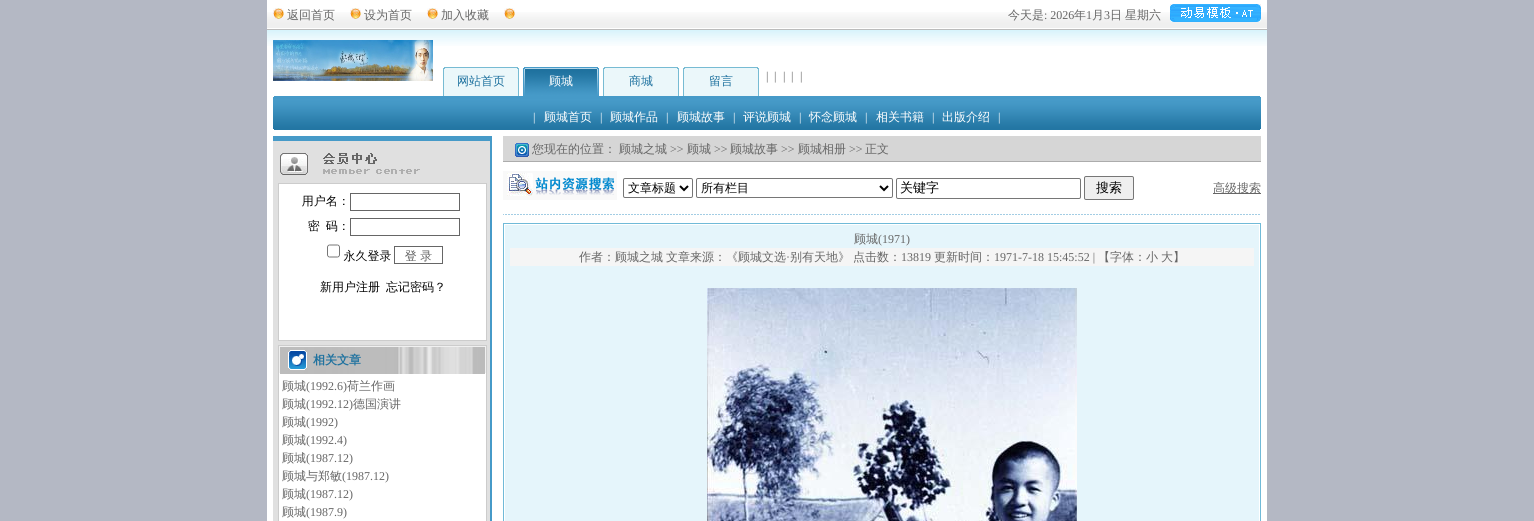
import math
import cairo

surface = cairo.ImageSurface(cairo.Format.RGB24, 1534, 521)
ctx = cairo.Context(surface)
options = cairo.FontOptions()
options.set_hint_metrics(cairo.HintMetrics.OFF)
options.set_hint_style(cairo.HintStyle.NONE)
ctx.set_font_options(options)
ctx.set_miter_limit(4)


def ink(r, g, b):
    ctx.set_source_rgb(r / 255, g / 255, b / 255)


def write(x, y, s, family, size, color, bold=False, italic=False):
    ctx.select_font_face(family, cairo.FontSlant.ITALIC if italic else cairo.FontSlant.NORMAL, cairo.FontWeight.BOLD if bold else cairo.FontWeight.NORMAL)
    ctx.set_font_size(size)
    ink(*color)
    ctx.move_to(x, y)
    ctx.show_text(s)


def block(x, y, w, h, *color):
    ink(*color)
    ctx.rectangle(x, y, w, h)
    ctx.fill()


def round_path(x, y, w, h, r):
    ctx.new_sub_path()
    for i, (u, v) in enumerate([(x + w - r, y + h - r), (x + r, y + h - r), (x + r, y + r), (x + w - r, y + r)]):
        ctx.arc(u, v, r, i * math.pi / 2, (i + 1) * math.pi / 2)
    ctx.close_path()


def paste(path, x, y, w, h):
    ctx.save()
    ctx.set_source_surface(cairo.ImageSurface.create_from_png(path), x, y)
    ctx.rectangle(x, y, w, h)
    ctx.fill()
    ctx.restore()


s1 = dict(family="WenQuanYi Zen Hei Medium", size=12, color=(102, 102, 102))
s2 = dict(family="Liberation Serif", size=12, color=(102, 102, 102))
s3 = dict(family="WenQuanYi Zen Hei Medium", size=12, color=(31, 114, 159))
s4 = dict(family="WenQuanYi Zen Hei Medium", size=12, color=(255, 255, 255))
s5 = dict(family="Liberation Serif", size=12, color=(255, 255, 255))
s6 = dict(family="WenQuanYi Zen Hei Medium", size=12, color=(0, 0, 0))
s7 = dict(family="WenQuanYi Zen Hei Medium", size=13, color=(0, 0, 0))
s8 = dict(family="WenQuanYi Zen Hei", size=12, color=(31, 114, 159), bold=True)

ink(180, 184, 196)
ctx.paint()
block(267, 0, 1000, 12, 255, 255, 255)
paste("pic1.png", 267, 12, 1000, 18)
paste("pic2.png", 273, 8, 11, 11)
write(287, 19, "返回首页", **s1)
paste("pic2.png", 350, 8, 11, 11)
write(364, 19, "设为首页", **s1)
paste("pic2.png", 427, 8, 11, 11)
write(441, 19, "加入收藏", **s1)
paste("pic2.png", 504, 8, 11, 11)
write(1008, 19, "今天是", **s1)
write(1044, 19, ": 2026", **s2)
write(1074, 19, "年", **s1)
write(1086, 19, "1", **s2)
write(1092, 19, "月", **s1)
write(1104, 19, "3", **s2)
write(1110, 19, "日", **s1)
write(1125, 19, "星期六", **s1)
paste("pic3.png", 1170, 4, 91, 18)
block(267, 46, 1000, 475, 255, 255, 255)
paste("pic4.png", 267, 30, 1000, 16)
paste("pic5.png", 273, 40, 160, 41)
paste("pic6.png", 443, 67, 76, 29)
write(457, 85, "网站首页", **s3)
paste("pic7.png", 523, 67, 76, 29)
write(549, 85, "顾城", **s4)
paste("pic6.png", 603, 67, 76, 29)
write(629, 85, "商城", **s3)
paste("pic6.png", 683, 67, 76, 29)
write(709, 85, "留言", **s3)
write(766, 80, "|", **s2)
write(774, 80, "|", **s2)
write(783, 80, "|", **s2)
write(791, 80, "|", **s2)
write(800, 80, "|", **s2)
paste("pic8.png", 273, 96, 2, 34)
paste("pic9.png", 275, 96, 984, 34)
write(533, 121, "|", **s5)
write(544, 121, "顾城首页", **s4)
write(600, 121, "|", **s5)
write(610, 121, "顾城作品", **s4)
write(666, 121, "|", **s5)
write(677, 121, "顾城故事", **s4)
write(733, 121, "|", **s5)
write(743, 121, "评说顾城", **s4)
write(799, 121, "|", **s5)
write(809, 121, "怀念顾城", **s4)
write(865, 121, "|", **s5)
write(876, 121, "相关书籍", **s4)
write(932, 121, "|", **s5)
write(942, 121, "出版介绍", **s4)
write(998, 121, "|", **s5)
paste("pic10.png", 1259, 96, 2, 34)
block(503, 136, 758, 25, 214, 214, 214)
block(503, 161, 758, 1, 172, 172, 172)
paste("pic11.png", 515, 143, 14, 14)
write(532, 153, "您现在的位置：", **s1)
write(619, 153, "顾城之城", **s1)
write(670, 153, ">>", **s2)
write(687, 153, "顾城", **s1)
write(714, 153, ">>", **s2)
write(730, 153, "顾城故事", **s1)
write(781, 153, ">>", **s2)
write(798, 153, "顾城相册", **s1)
write(849, 153, ">>", **s2)
write(865, 153, "正文", **s1)
paste("pic12.png", 503, 171, 114, 29)
round_path(623.5, 178.5, 69, 19, 1.5)
ink(118, 118, 118)
ctx.set_line_width(1)
ctx.stroke()
ctx.new_path()
ctx.move_to(680, 186)
ctx.line_to(684, 190)
ctx.line_to(688, 186)
ink(0, 0, 0)
ctx.set_line_width(2)
ctx.stroke()
write(628, 192, "文章标题", **s6)
round_path(696.5, 178.5, 196, 19, 1.5)
ink(118, 118, 118)
ctx.set_line_width(1)
ctx.stroke()
ctx.new_path()
ctx.move_to(880, 186)
ctx.line_to(884, 190)
ctx.line_to(888, 186)
ink(0, 0, 0)
ctx.set_line_width(2)
ctx.stroke()
write(701, 192, "所有栏目", **s6)
round_path(896.5, 178.5, 184, 20, 1.5)
ink(118, 118, 118)
ctx.set_line_width(1)
ctx.stroke()
write(900, 192, "关键字", **s7)
ink(239, 239, 239)
round_path(1084.5, 176.5, 49, 23, 1.5)
ctx.fill_preserve()
ink(118, 118, 118)
ctx.stroke()
write(1096, 192, "搜索", **s7)
block(1213, 193, 48, 1, 102, 102, 102)
write(1213, 192, "高级搜索", **s1)
paste("pic13.png", 503, 214, 757, 1)
ctx.rectangle(503.5, 223.5, 757, 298)
ink(112, 186, 216)
ctx.stroke()
block(505, 225, 754, 296, 229, 245, 251)
write(854, 243, "顾城", **s1)
write(878, 243, "(1971)", **s2)
block(510, 248, 744, 18, 245, 245, 245)
write(579, 261, "作者：顾城之城", **s1)
write(666, 261, "文章来源：《顾城文选", **s1)
write(786, 261, "·", **s2)
write(790, 261, "别有天地》", **s1)
write(853, 261, "点击数：", **s1)
write(901, 261, "13819", **s2)
write(934, 261, "更新时间：", **s1)
write(994, 261, "1971-7-18 15:45:52 |", **s2)
write(1098, 261, "【字体：小", **s1)
write(1161, 261, "大】", **s1)
paste("pic14.png", 707, 288, 370, 233)
paste("pic15.png", 273, 141, 219, 380)
block(273, 136, 219, 5, 70, 154, 200)
paste("pic16.png", 280, 153, 140, 22)
ink(255, 255, 255)
ctx.rectangle(278.5, 183.5, 208, 157)
ctx.fill_preserve()
ink(204, 204, 204)
ctx.stroke()
paste("pic17.png", 302, 193, 158, 100)
block(279, 374, 207, 147, 255, 255, 255)
ctx.rectangle(278.5, 345.5, 208, 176)
ink(204, 204, 204)
ctx.stroke()
paste("pic18.png", 279, 346, 207, 28)
write(313, 364, "相关文章", **s8)
write(282, 390, "顾城", **s1)
write(306, 390, "(1992.6)", **s2)
write(347, 390, "荷兰作画", **s1)
write(282, 408, "顾城", **s1)
write(306, 408, "(1992.12)", **s2)
write(353, 408, "德国演讲", **s1)
write(282, 426, "顾城", **s1)
write(306, 426, "(1992)", **s2)
write(282, 444, "顾城", **s1)
write(306, 444, "(1992.4)", **s2)
write(282, 462, "顾城", **s1)
write(306, 462, "(1987.12)", **s2)
write(282, 480, "顾城与郑敏", **s1)
write(342, 480, "(1987.12)", **s2)
write(282, 498, "顾城", **s1)
write(306, 498, "(1987.12)", **s2)
write(282, 516, "顾城", **s1)
write(306, 516, "(1987.9)", **s2)
surface.write_to_png("screenshot.png")
